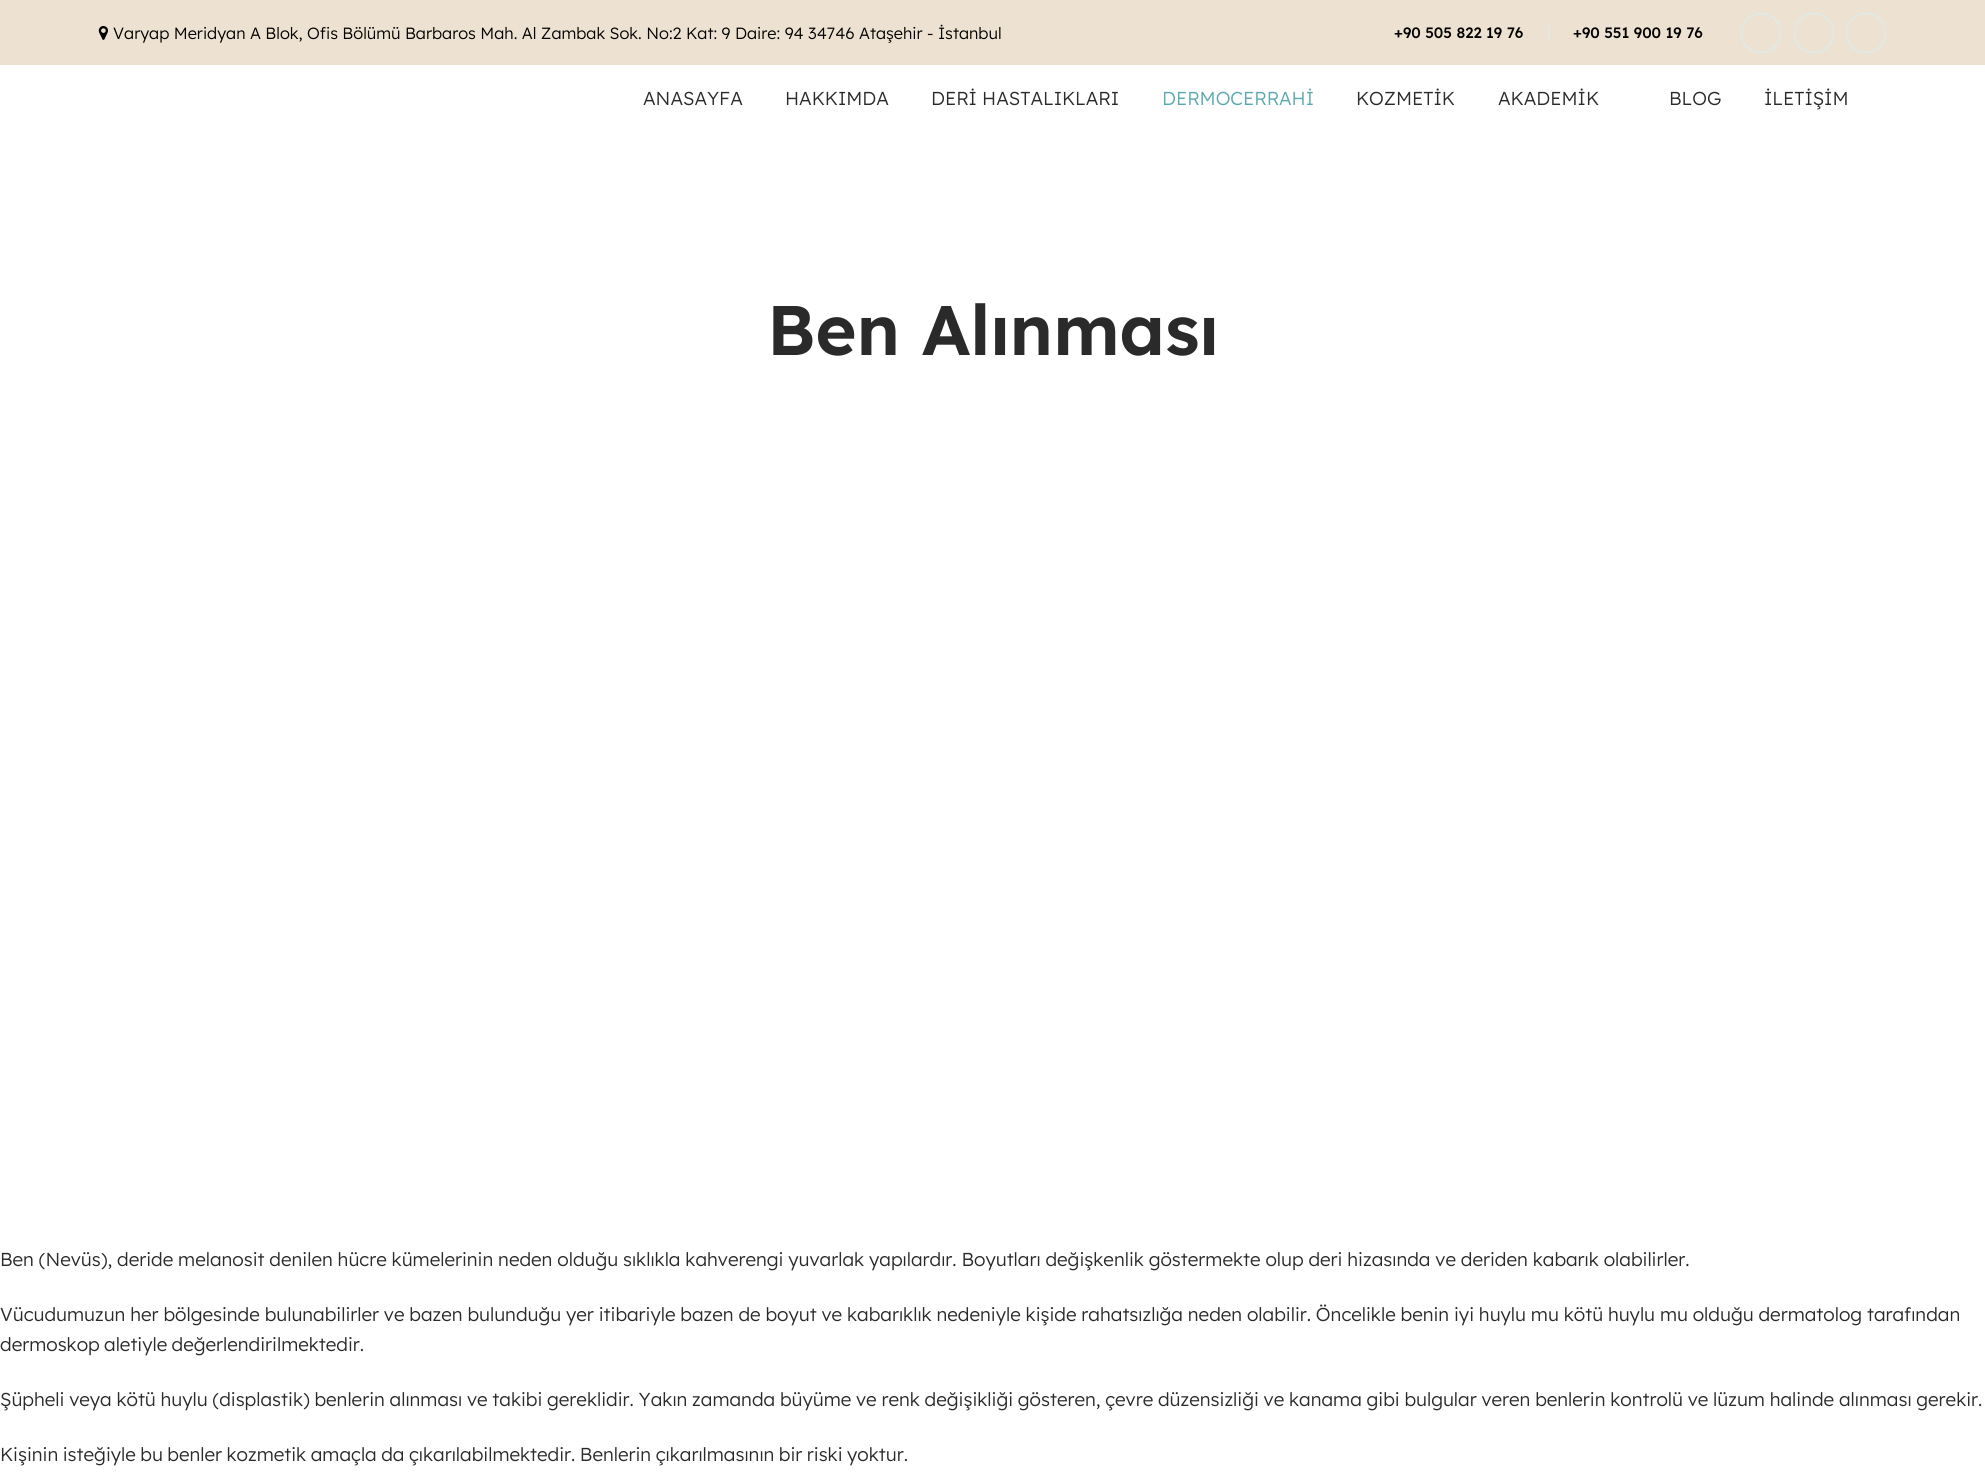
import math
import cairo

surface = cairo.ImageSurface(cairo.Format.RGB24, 1985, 1476)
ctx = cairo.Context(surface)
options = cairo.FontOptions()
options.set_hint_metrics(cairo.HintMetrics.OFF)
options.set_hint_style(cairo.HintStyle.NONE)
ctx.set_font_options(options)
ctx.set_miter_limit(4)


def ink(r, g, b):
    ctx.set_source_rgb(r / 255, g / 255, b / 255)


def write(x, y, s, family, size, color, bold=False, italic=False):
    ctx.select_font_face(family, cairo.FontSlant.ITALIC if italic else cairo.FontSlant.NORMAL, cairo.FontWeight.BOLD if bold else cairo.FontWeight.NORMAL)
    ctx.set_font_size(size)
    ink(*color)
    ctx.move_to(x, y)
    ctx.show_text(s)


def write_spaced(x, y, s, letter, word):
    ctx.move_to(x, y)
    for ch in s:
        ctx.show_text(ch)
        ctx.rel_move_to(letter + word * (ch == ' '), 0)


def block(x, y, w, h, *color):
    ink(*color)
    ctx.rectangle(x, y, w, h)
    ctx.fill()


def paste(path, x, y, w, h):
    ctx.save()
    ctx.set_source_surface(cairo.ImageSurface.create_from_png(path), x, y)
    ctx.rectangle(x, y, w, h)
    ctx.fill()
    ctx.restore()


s1 = dict(family="Lexend Medium", size=15, color=(0, 0, 0))
s2 = dict(family="Lexend Light", size=18.75, color=(42, 42, 42))
s3 = dict(family="Lexend Light", size=18.75, color=(91, 168, 174))
s4 = dict(family="Lexend SemiBold", size=70, color=(42, 42, 42))

ink(255, 255, 255)
ctx.paint()
block(0, 0, 1985, 65, 237, 226, 209)
paste("pic1.png", 98, 26, 10, 14)
ctx.select_font_face("Lexend Light")
ctx.set_font_size(16.25)
ink(0, 0, 0)
write_spaced(113, 39, "Varyap Meridyan A Blok, Ofis Bölümü Barbaros Mah. Al Zambak Sok. No:2 Kat: 9 Daire: 94 34746 Ataşehir - İstanbul", 0, -0.1)
write(1394, 38, "+90 505 822 19 76", **s1)
block(1548, 25, 1, 15, 214, 238, 244)
write(1573, 38, "+90 551 900 19 76", **s1)
ctx.new_path()
ctx.arc(1761, 33, 19.5, 0, 2 * math.pi)
ink(214, 238, 244)
ctx.set_line_width(1)
ctx.stroke()
ctx.arc(1814, 33, 19.5, 0, 2 * math.pi)
ctx.stroke()
ctx.arc(1866, 33, 19.5, 0, 2 * math.pi)
ctx.stroke()
write(643, 105, "ANASAYFA", **s2)
write(785, 105, "HAKKIMDA", **s2)
write(931, 105, "DERİ HASTALIKLARI", **s2)
write(1162, 105, "DERMOCERRAHİ", **s3)
write(1356, 105, "KOZMETİK", **s2)
write(1498, 105, "AKADEMİK", **s2)
write(1669, 105, "BLOG", **s2)
write(1764, 105, "İLETİŞİM", **s2)
write(767, 355, "Ben Alınması", **s4)
ctx.select_font_face("Lexend Light")
ctx.set_font_size(18.75)
write_spaced(0, 1266, "Ben (Nevüs), deride melanosit denilen hücre kümelerinin neden olduğu sıklıkla kahverengi yuvarlak yapılardır. Boyutları değişkenlik göstermekte olup deri hizasında ve deriden kabarık olabilirler.", 0, -0.4)
write_spaced(0, 1321, "Vücudumuzun her bölgesinde bulunabilirler ve bazen bulunduğu yer itibariyle bazen de boyut ve kabarıklık nedeniyle kişide rahatsızlığa neden olabilir. Öncelikle benin iyi huylu mu kötü huylu mu olduğu dermatolog tarafından", 0, -0.4)
write_spaced(0, 1351, "dermoskop aletiyle değerlendirilmektedir.", 0, -1)
write_spaced(0, 1406, "Şüpheli veya kötü huylu (displastik) benlerin alınması ve takibi gereklidir. Yakın zamanda büyüme ve renk değişikliği gösteren, çevre düzensizliği ve kanama gibi bulgular veren benlerin kontrolü ve lüzum halinde alınması gerekir.", 0, -0.5)
write_spaced(0, 1461, "Kişinin isteğiyle bu benler kozmetik amaçla da çıkarılabilmektedir. Benlerin çıkarılmasının bir riski yoktur.", 0, -0.75)
surface.write_to_png("screenshot.png")
